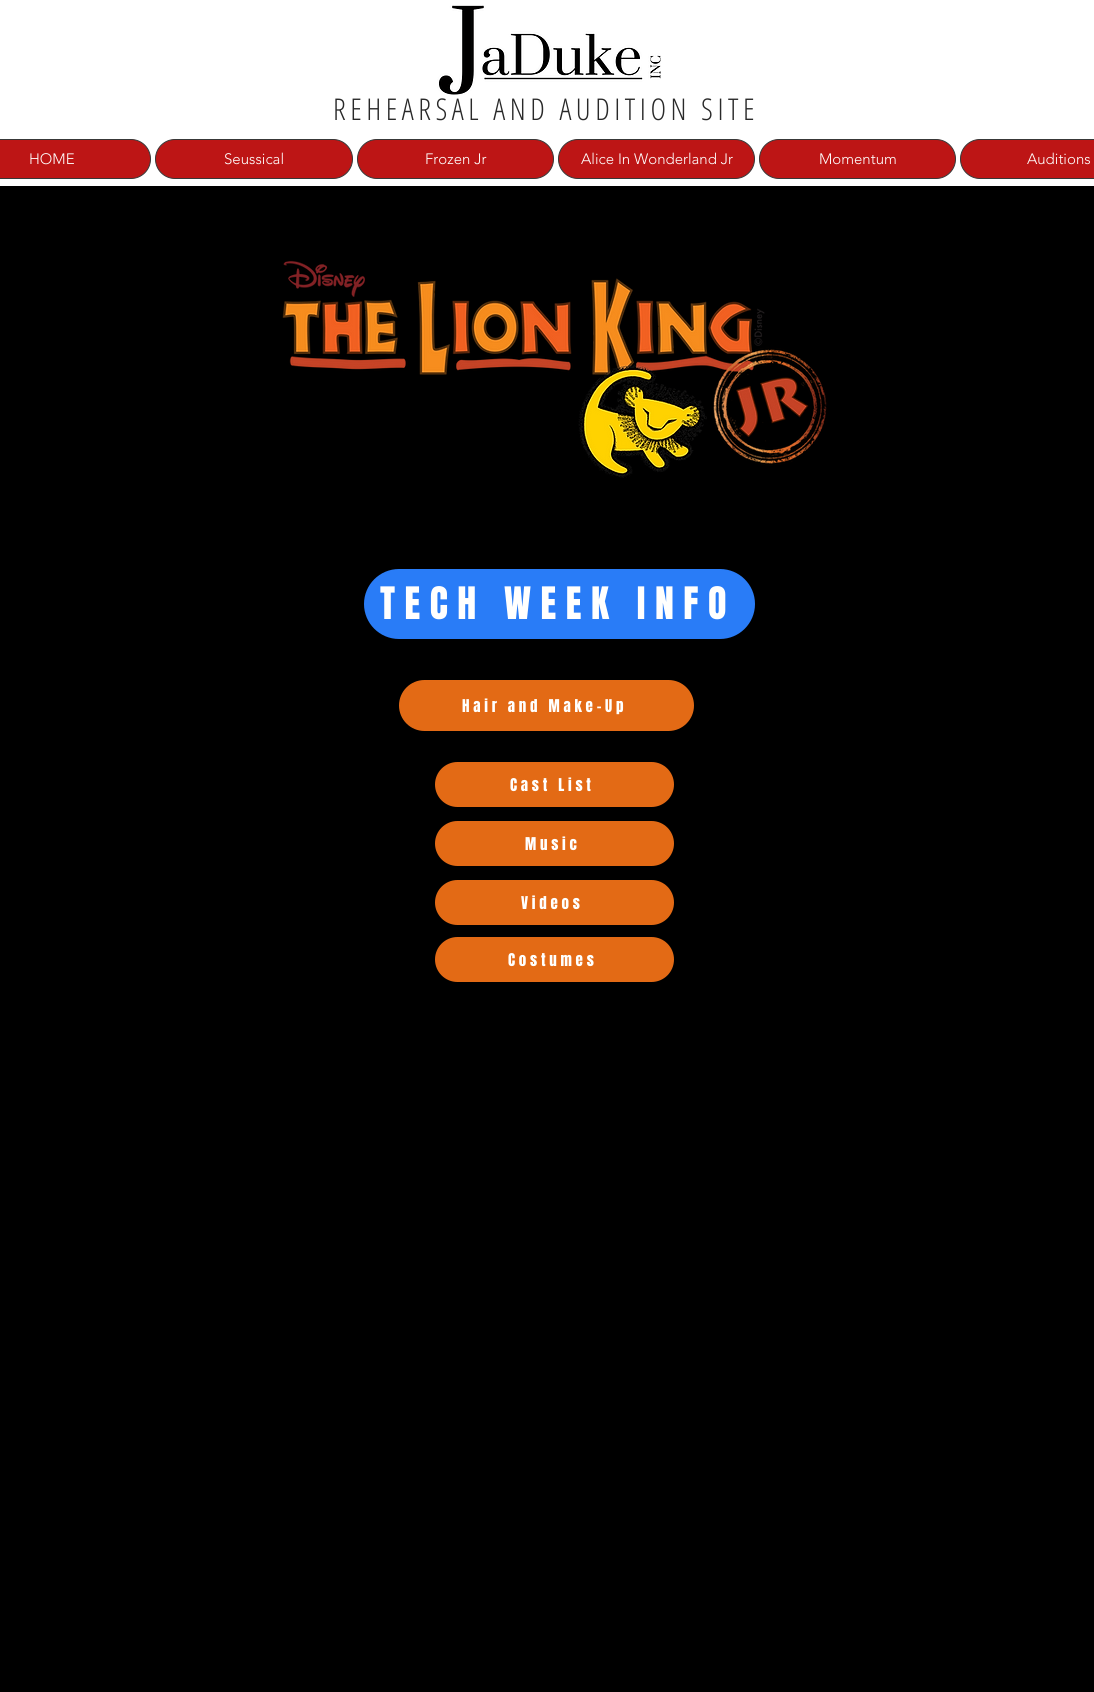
import math
import cairo

surface = cairo.ImageSurface(cairo.Format.RGB24, 1094, 1692)
ctx = cairo.Context(surface)
options = cairo.FontOptions()
options.set_hint_metrics(cairo.HintMetrics.OFF)
options.set_hint_style(cairo.HintStyle.NONE)
ctx.set_font_options(options)
ctx.set_miter_limit(4)


def ink(r, g, b):
    ctx.set_source_rgb(r / 255, g / 255, b / 255)


def write(x, y, s, family, size, color, bold=False, italic=False):
    ctx.select_font_face(family, cairo.FontSlant.ITALIC if italic else cairo.FontSlant.NORMAL, cairo.FontWeight.BOLD if bold else cairo.FontWeight.NORMAL)
    ctx.set_font_size(size)
    ink(*color)
    ctx.move_to(x, y)
    ctx.show_text(s)


def write_spaced(x, y, s, letter, word):
    ctx.move_to(x, y)
    for ch in s:
        ctx.show_text(ch)
        ctx.rel_move_to(letter + word * (ch == ' '), 0)


def block(x, y, w, h, *color):
    ink(*color)
    ctx.rectangle(x, y, w, h)
    ctx.fill()


def round_path(x, y, w, h, r):
    ctx.new_sub_path()
    for i, (u, v) in enumerate([(x + w - r, y + h - r), (x + r, y + h - r), (x + r, y + r), (x + w - r, y + r)]):
        ctx.arc(u, v, r, i * math.pi / 2, (i + 1) * math.pi / 2)
    ctx.close_path()


def paste(path, x, y, w, h):
    ctx.save()
    ctx.set_source_surface(cairo.ImageSurface.create_from_png(path), x, y)
    ctx.rectangle(x, y, w, h)
    ctx.fill()
    ctx.restore()


s1 = dict(family="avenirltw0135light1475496 Light", size=15, color=(255, 255, 254))

ink(0, 0, 0)
ctx.paint()
block(0, 0, 1094, 186, 255, 255, 255)
paste("pic1.png", 437, 5, 224, 90)
ctx.select_font_face("Open Sans Condensed Light")
ctx.set_font_size(30)
ink(41, 41, 41)
write_spaced(333, 120, "REHEARSAL AND AUDITION SITE", 4.5, 0)
ink(189, 21, 21)
round_path(-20.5, 139.5, 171, 39, 19.5)
ctx.fill_preserve()
ink(56, 56, 56)
ctx.set_line_width(1)
ctx.stroke()
write(29, 164, "HOME", **s1)
ink(189, 21, 21)
round_path(155.5, 139.5, 197, 39, 19.5)
ctx.fill_preserve()
ink(56, 56, 56)
ctx.stroke()
write(224, 164, "Seussical", **s1)
ink(189, 21, 21)
round_path(357.5, 139.5, 196, 39, 19.5)
ctx.fill_preserve()
ink(56, 56, 56)
ctx.stroke()
write(425, 164, "Frozen Jr", **s1)
ink(189, 21, 21)
round_path(558.5, 139.5, 196, 39, 19.5)
ctx.fill_preserve()
ink(56, 56, 56)
ctx.stroke()
write(581, 164, "Alice In Wonderland Jr", **s1)
ink(189, 21, 21)
round_path(759.5, 139.5, 196, 39, 19.5)
ctx.fill_preserve()
ink(56, 56, 56)
ctx.stroke()
write(819, 164, "Momentum", **s1)
ink(189, 21, 21)
round_path(960.5, 139.5, 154, 39, 19.5)
ctx.fill_preserve()
ink(56, 56, 56)
ctx.stroke()
write(1027, 164, "Auditions", **s1)
paste("pic2.png", 282, 260, 545, 218)
ink(41, 124, 247)
round_path(364, 569, 391, 70, 35)
ctx.fill()
ctx.save()
ctx.rectangle(380, 576, 355, 56)
ctx.clip()
ctx.select_font_face("Anton")
ctx.set_font_size(38)
ink(255, 255, 254)
write_spaced(380, 619, "TECH WEEK INFO", 9.5, 0)
ctx.restore()
ink(227, 106, 21)
round_path(399, 680, 295, 51, 25.5)
ctx.fill()
ctx.select_font_face("Anton")
ink(255, 255, 254)
write_spaced(462, 712, "Hair and Make-Up", 3.75, 0)
ink(227, 106, 21)
round_path(435, 762, 239, 45, 22.5)
ctx.fill()
ink(255, 255, 254)
write_spaced(510, 791, "Cast List", 3.75, 0)
ink(227, 106, 21)
round_path(435, 821, 239, 45, 22.5)
ctx.fill()
ink(255, 255, 254)
write_spaced(525, 850, "Music", 3.75, 0)
ink(227, 106, 21)
round_path(435, 880, 239, 45, 22.5)
ctx.fill()
ink(255, 255, 254)
write_spaced(521, 909, "Videos", 3.75, 0)
ink(227, 106, 21)
round_path(435, 937, 239, 45, 22.5)
ctx.fill()
ink(255, 255, 254)
write_spaced(508, 966, "Costumes", 3.75, 0)
surface.write_to_png("screenshot.png")
